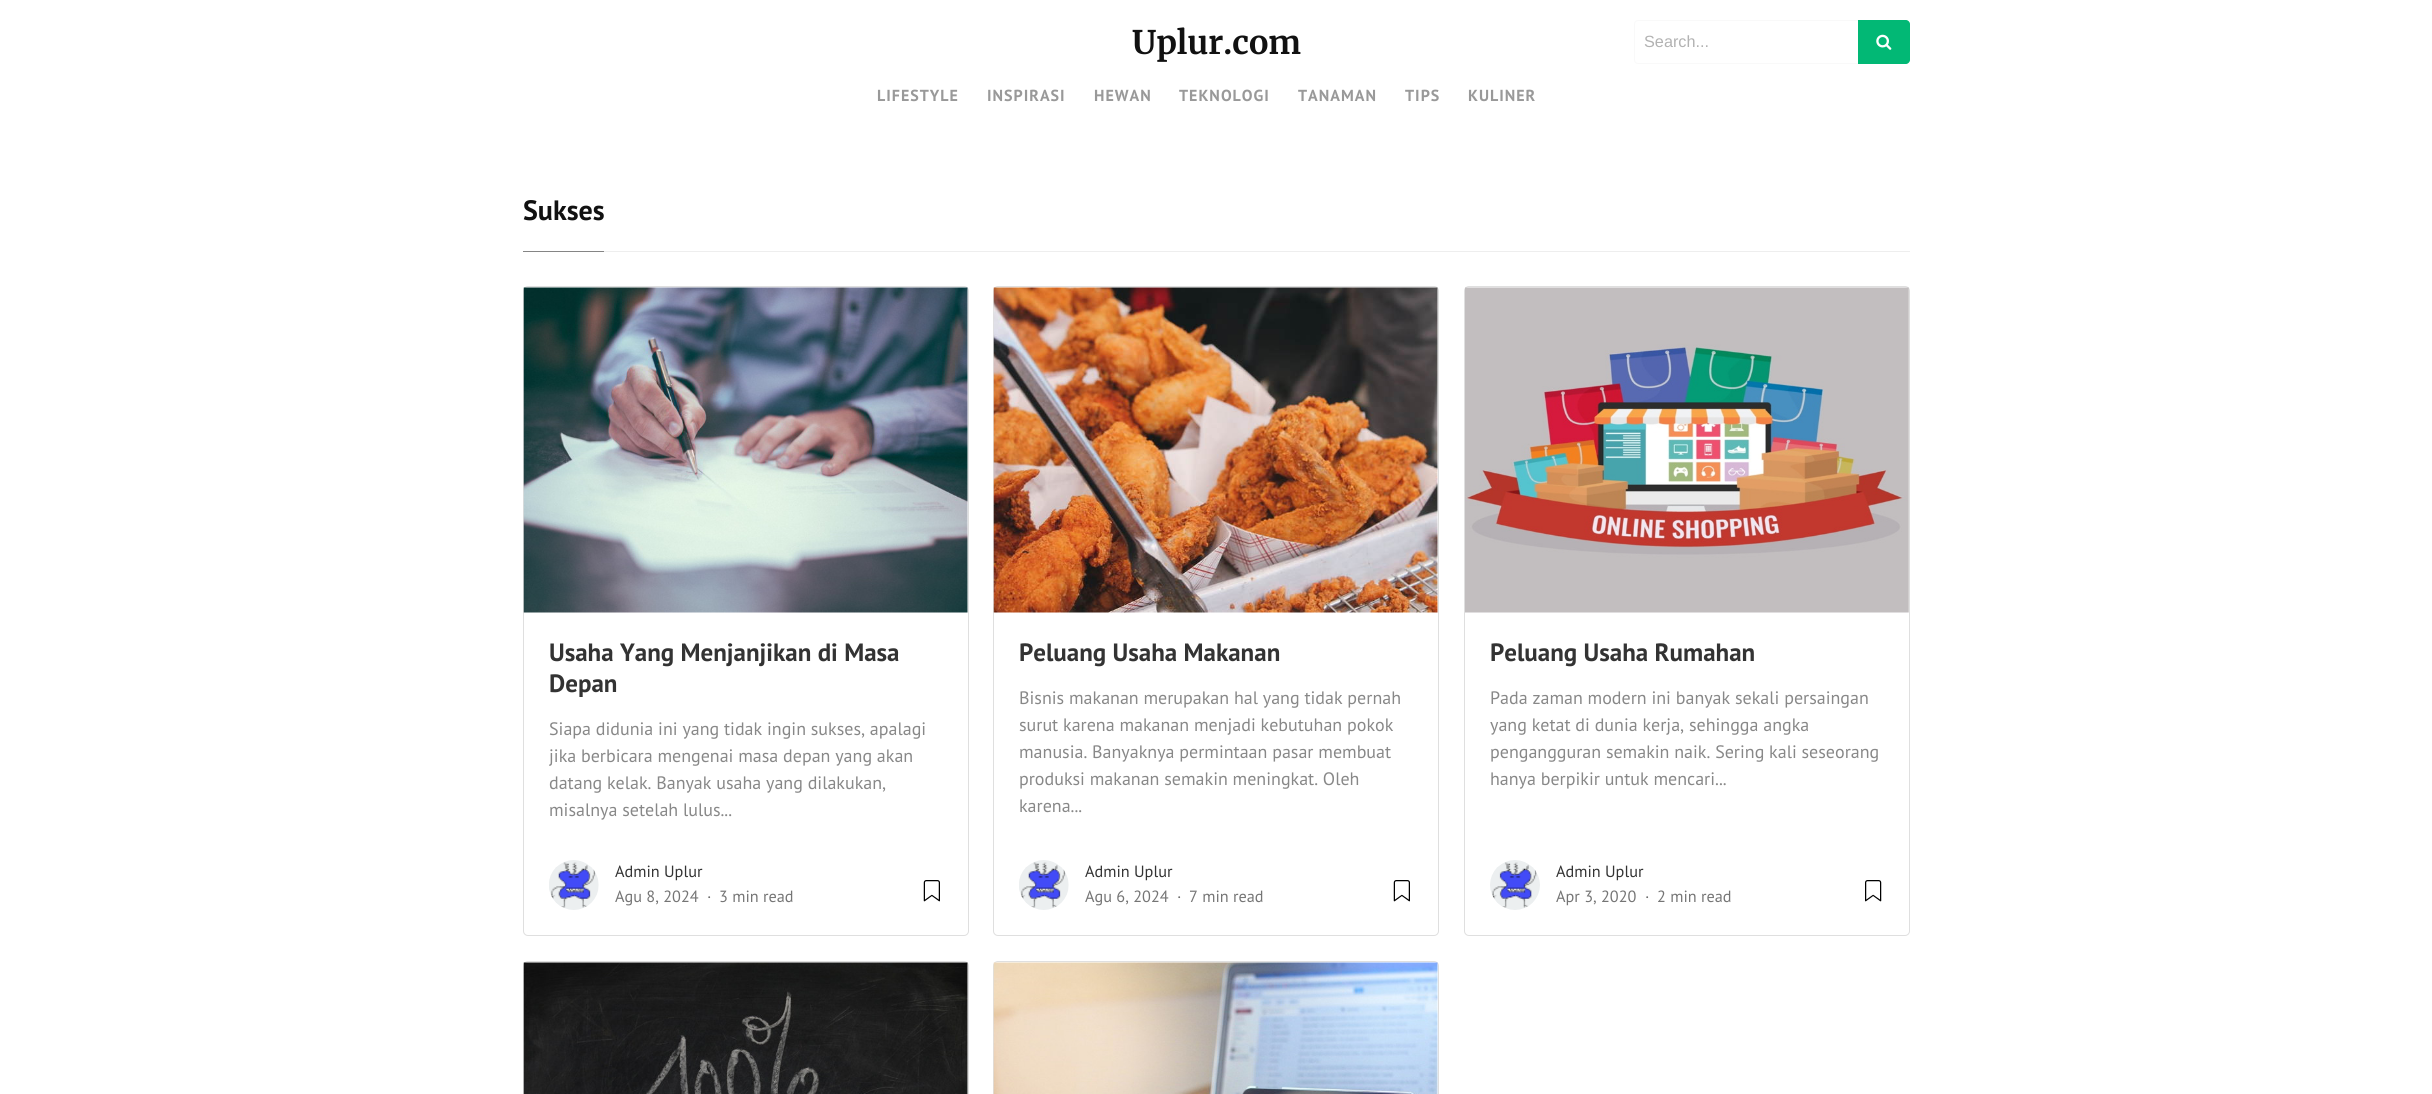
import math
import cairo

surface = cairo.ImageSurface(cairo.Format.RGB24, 2432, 1094)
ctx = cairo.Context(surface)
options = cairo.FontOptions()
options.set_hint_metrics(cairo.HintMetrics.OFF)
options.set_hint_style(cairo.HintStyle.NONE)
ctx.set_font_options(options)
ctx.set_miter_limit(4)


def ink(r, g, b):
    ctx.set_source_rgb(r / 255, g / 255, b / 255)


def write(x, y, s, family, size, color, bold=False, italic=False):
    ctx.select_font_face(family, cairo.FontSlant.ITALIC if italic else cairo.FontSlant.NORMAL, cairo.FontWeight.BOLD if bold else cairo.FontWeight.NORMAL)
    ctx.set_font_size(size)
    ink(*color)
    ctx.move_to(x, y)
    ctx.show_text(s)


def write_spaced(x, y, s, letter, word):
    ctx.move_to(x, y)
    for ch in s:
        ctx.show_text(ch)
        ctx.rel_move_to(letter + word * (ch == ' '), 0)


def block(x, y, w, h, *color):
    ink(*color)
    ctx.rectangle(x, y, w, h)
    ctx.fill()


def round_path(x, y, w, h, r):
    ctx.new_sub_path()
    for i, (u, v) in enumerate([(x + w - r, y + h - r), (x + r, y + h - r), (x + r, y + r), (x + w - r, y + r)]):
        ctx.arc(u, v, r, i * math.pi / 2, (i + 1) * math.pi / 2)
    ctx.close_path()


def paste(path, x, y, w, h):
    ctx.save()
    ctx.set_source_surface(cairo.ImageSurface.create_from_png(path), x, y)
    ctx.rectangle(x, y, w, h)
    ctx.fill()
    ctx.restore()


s1 = dict(family="Merriweather Light", size=32.5, color=(17, 17, 17))
s2 = dict(family="Liberation Sans", size=16.25, color=(178, 178, 178))
s3 = dict(family="PT Sans", size=28, color=(17, 17, 17), bold=True)
s4 = dict(family="PT Sans", size=25, color=(51, 51, 51), bold=True)
s5 = dict(family="PT Sans", size=18, color=(136, 136, 136))
s6 = dict(family="PT Sans", size=16.25, color=(51, 51, 51))
s7 = dict(family="PT Sans", size=16.25, color=(117, 117, 117))
s8 = dict(family="PT Sans", size=16.25, color=(102, 102, 102))

ink(255, 255, 255)
ctx.paint()
write(1132, 54, "Uplur.com", **s1)
ctx.new_path()
ctx.move_to(1638, 20.5)
ctx.line_to(1858.5, 20.5)
ctx.line_to(1858.5, 63.5)
ctx.line_to(1638, 63.5)
ctx.curve_to(1636, 63.5, 1634.5, 62, 1634.5, 60)
ctx.line_to(1634.5, 24)
ctx.curve_to(1634.5, 22, 1636, 20.5, 1638, 20.5)
ctx.close_path()
ink(249, 249, 249)
ctx.set_line_width(1)
ctx.stroke()
write(1644, 47, "Search...", **s2)
ink(2, 184, 117)
ctx.new_path()
ctx.move_to(1858, 20)
ctx.line_to(1906, 20)
ctx.curve_to(1908, 20, 1910, 22, 1910, 24)
ctx.line_to(1910, 60)
ctx.curve_to(1910, 62, 1908, 64, 1906, 64)
ctx.line_to(1858, 64)
ctx.close_path()
ctx.fill()
paste("pic1.png", 1876, 34, 16, 16)
ctx.select_font_face("PT Sans", cairo.FontSlant.NORMAL, cairo.FontWeight.BOLD)
ctx.set_font_size(16)
ink(153, 153, 153)
write_spaced(877, 101, "LIFESTYLE", 1, 0)
write_spaced(987, 101, "INSPIRASI", 1, 0)
write_spaced(1094, 101, "HEWAN", 1, 0)
write_spaced(1179, 101, "TEKNOLOGI", 1, 0)
write_spaced(1298, 101, "TANAMAN", 1, 0)
write_spaced(1405, 101, "TIPS", 1, 0)
write_spaced(1468, 101, "KULINER", 1, 0)
block(604, 251, 1306, 1, 238, 238, 238)
block(523, 251, 81, 1, 133, 133, 133)
write(523, 220, "Sukses", **s3)
round_path(523.5, 286.5, 445, 649, 4.5)
ink(223, 223, 223)
ctx.stroke()
paste("pic2.png", 523, 287, 445, 326)
write(549, 661, "Usaha Yang Menjanjikan di Masa", **s4)
write(549, 692, "Depan", **s4)
write(549, 735, "Siapa didunia ini yang tidak ingin sukses, apalagi", **s5)
write(549, 762, "jika berbicara mengenai masa depan yang akan", **s5)
write(549, 789, "datang kelak. Banyak usaha yang dilakukan,", **s5)
write(549, 816, "misalnya setelah lulus...", **s5)
paste("pic3.png", 549, 860, 50, 50)
write(615, 877, "Admin Uplur", **s6)
write(615, 902, "Agu 8, 2024", **s7)
write(707, 902, "·", **s8)
write(719, 902, "3 min read", **s7)
paste("pic4.png", 923, 880, 17, 22)
round_path(993.5, 286.5, 445, 649, 4.5)
ink(223, 223, 223)
ctx.stroke()
paste("pic5.png", 993, 287, 445, 326)
write(1019, 661, "Peluang Usaha Makanan", **s4)
write(1019, 704, "Bisnis makanan merupakan hal yang tidak pernah", **s5)
write(1019, 731, "surut karena makanan menjadi kebutuhan pokok", **s5)
write(1019, 758, "manusia. Banyaknya permintaan pasar membuat", **s5)
write(1019, 785, "produksi makanan semakin meningkat. Oleh", **s5)
write(1019, 812, "karena...", **s5)
paste("pic6.png", 1019, 860, 50, 50)
write(1085, 877, "Admin Uplur", **s6)
write(1085, 902, "Agu 6, 2024", **s7)
write(1177, 902, "·", **s8)
write(1189, 902, "7 min read", **s7)
paste("pic4.png", 1393, 880, 17, 22)
round_path(1464.5, 286.5, 445, 649, 4.5)
ink(223, 223, 223)
ctx.stroke()
paste("pic7.png", 1465, 287, 444, 326)
write(1490, 661, "Peluang Usaha Rumahan", **s4)
write(1490, 704, "Pada zaman modern ini banyak sekali persaingan", **s5)
write(1490, 731, "yang ketat di dunia kerja, sehingga angka", **s5)
write(1490, 758, "pengangguran semakin naik. Sering kali seseorang", **s5)
write(1490, 785, "hanya berpikir untuk mencari...", **s5)
paste("pic8.png", 1490, 860, 50, 50)
write(1556, 877, "Admin Uplur", **s6)
write(1556, 902, "Apr 3, 2020", **s7)
write(1645, 902, "·", **s8)
write(1657, 902, "2 min read", **s7)
paste("pic9.png", 1865, 880, 17, 22)
round_path(523.5, 961.5, 445, 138, 4.5)
ink(223, 223, 223)
ctx.stroke()
paste("pic10.png", 523, 962, 445, 132)
round_path(993.5, 961.5, 445, 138, 4.5)
ctx.stroke()
paste("pic11.png", 993, 962, 445, 132)
surface.write_to_png("screenshot.png")
